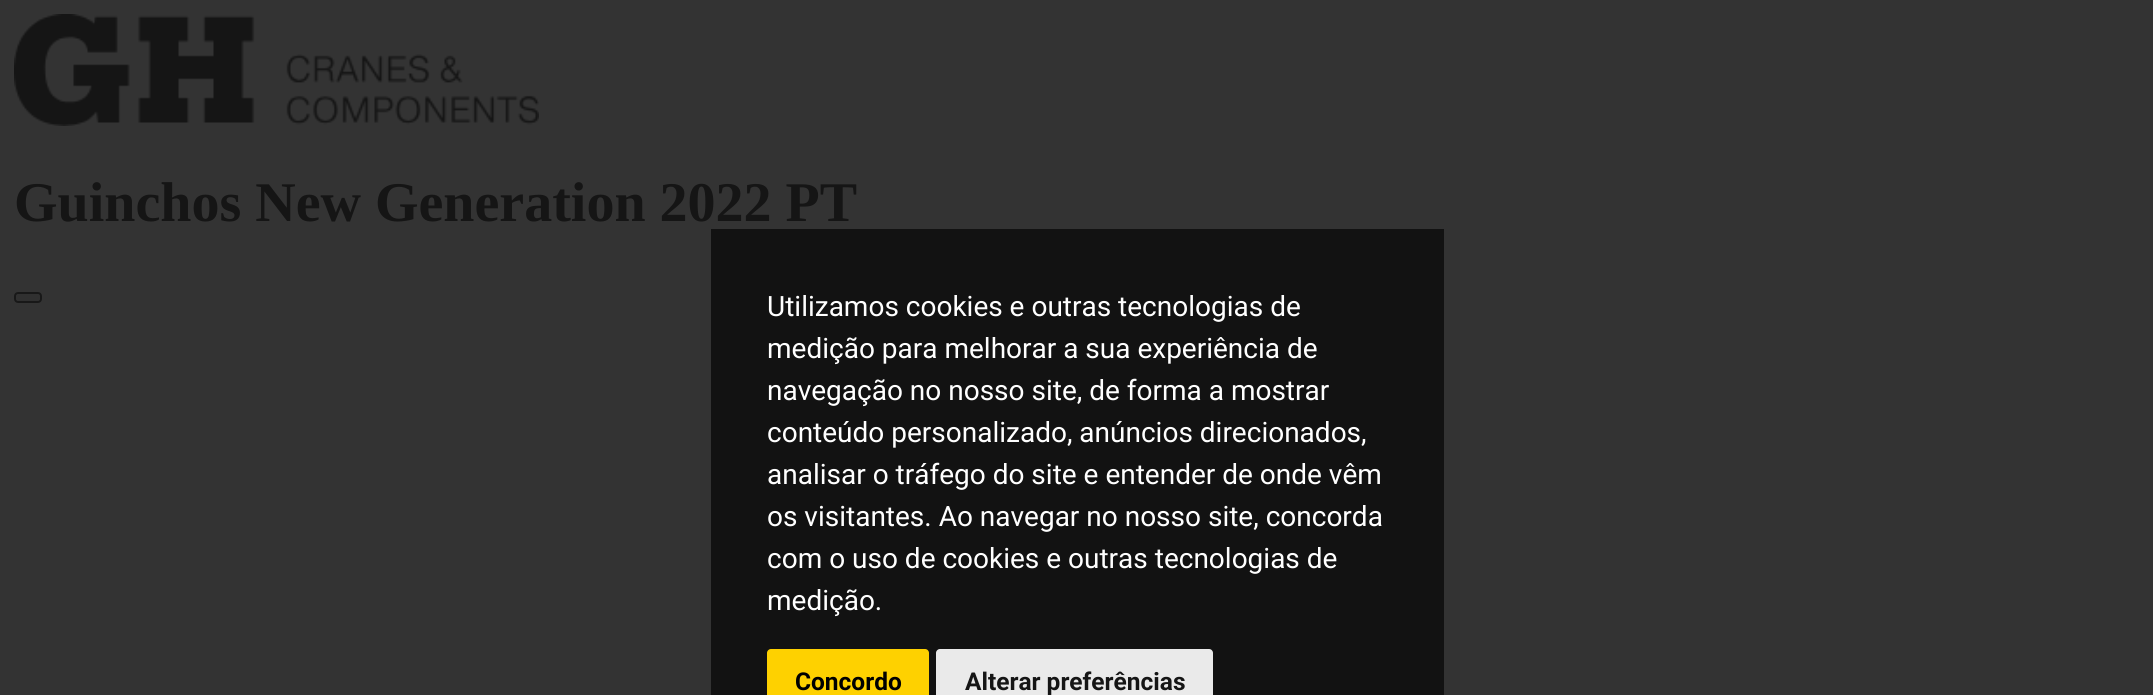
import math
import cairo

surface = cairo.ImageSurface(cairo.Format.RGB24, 2153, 695)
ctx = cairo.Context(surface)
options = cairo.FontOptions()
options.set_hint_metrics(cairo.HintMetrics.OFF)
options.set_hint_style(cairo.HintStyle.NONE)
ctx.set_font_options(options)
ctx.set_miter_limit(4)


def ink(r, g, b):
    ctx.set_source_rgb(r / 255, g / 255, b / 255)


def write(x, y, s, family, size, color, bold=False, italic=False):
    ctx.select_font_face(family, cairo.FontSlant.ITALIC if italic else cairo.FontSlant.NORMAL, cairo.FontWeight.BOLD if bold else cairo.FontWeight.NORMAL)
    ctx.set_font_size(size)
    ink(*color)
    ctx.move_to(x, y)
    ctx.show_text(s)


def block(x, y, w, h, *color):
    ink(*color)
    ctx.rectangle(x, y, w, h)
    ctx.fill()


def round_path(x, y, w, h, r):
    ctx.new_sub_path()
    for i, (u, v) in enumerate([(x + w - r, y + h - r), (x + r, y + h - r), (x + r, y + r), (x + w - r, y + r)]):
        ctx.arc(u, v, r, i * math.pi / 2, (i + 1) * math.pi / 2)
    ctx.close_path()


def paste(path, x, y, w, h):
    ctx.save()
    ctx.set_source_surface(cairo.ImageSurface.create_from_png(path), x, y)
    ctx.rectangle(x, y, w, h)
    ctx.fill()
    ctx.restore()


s1 = dict(family="Liberation Serif", size=56, color=(21, 21, 21), bold=True)
s2 = dict(family="Roboto", size=28, color=(255, 255, 255))
s3 = dict(family="Roboto", size=24.5, color=(0, 0, 0), bold=True)
s4 = dict(family="Roboto", size=24.5, color=(21, 21, 21), bold=True)

ink(51, 51, 51)
ctx.paint()
paste("pic1.png", 14, 14, 525, 112)
write(14, 221, "Guinchos New Generation 2022 PT", **s1)
ink(48, 48, 48)
round_path(15, 293, 26, 9, 3)
ctx.fill_preserve()
ink(24, 24, 24)
ctx.stroke()
block(711, 229, 733, 466, 18, 18, 18)
write(767, 316, "Utilizamos cookies e outras tecnologias de", **s2)
write(767, 358, "medição para melhorar a sua experiência de", **s2)
write(767, 400, "navegação no nosso site, de forma a mostrar", **s2)
write(767, 442, "conteúdo personalizado, anúncios direcionados,", **s2)
write(767, 484, "analisar o tráfego do site e entender de onde vêm", **s2)
write(767, 526, "os visitantes. Ao navegar no nosso site, concorda", **s2)
write(767, 568, "com o uso de cookies e outras tecnologias de", **s2)
write(767, 610, "medição.", **s2)
ink(254, 209, 0)
round_path(767, 649, 162, 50, 4)
ctx.fill()
write(795, 690, "Concordo", **s3)
ink(234, 234, 234)
round_path(936, 649, 277, 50, 4)
ctx.fill()
write(965, 690, "Alterar preferências", **s4)
surface.write_to_png("screenshot.png")
